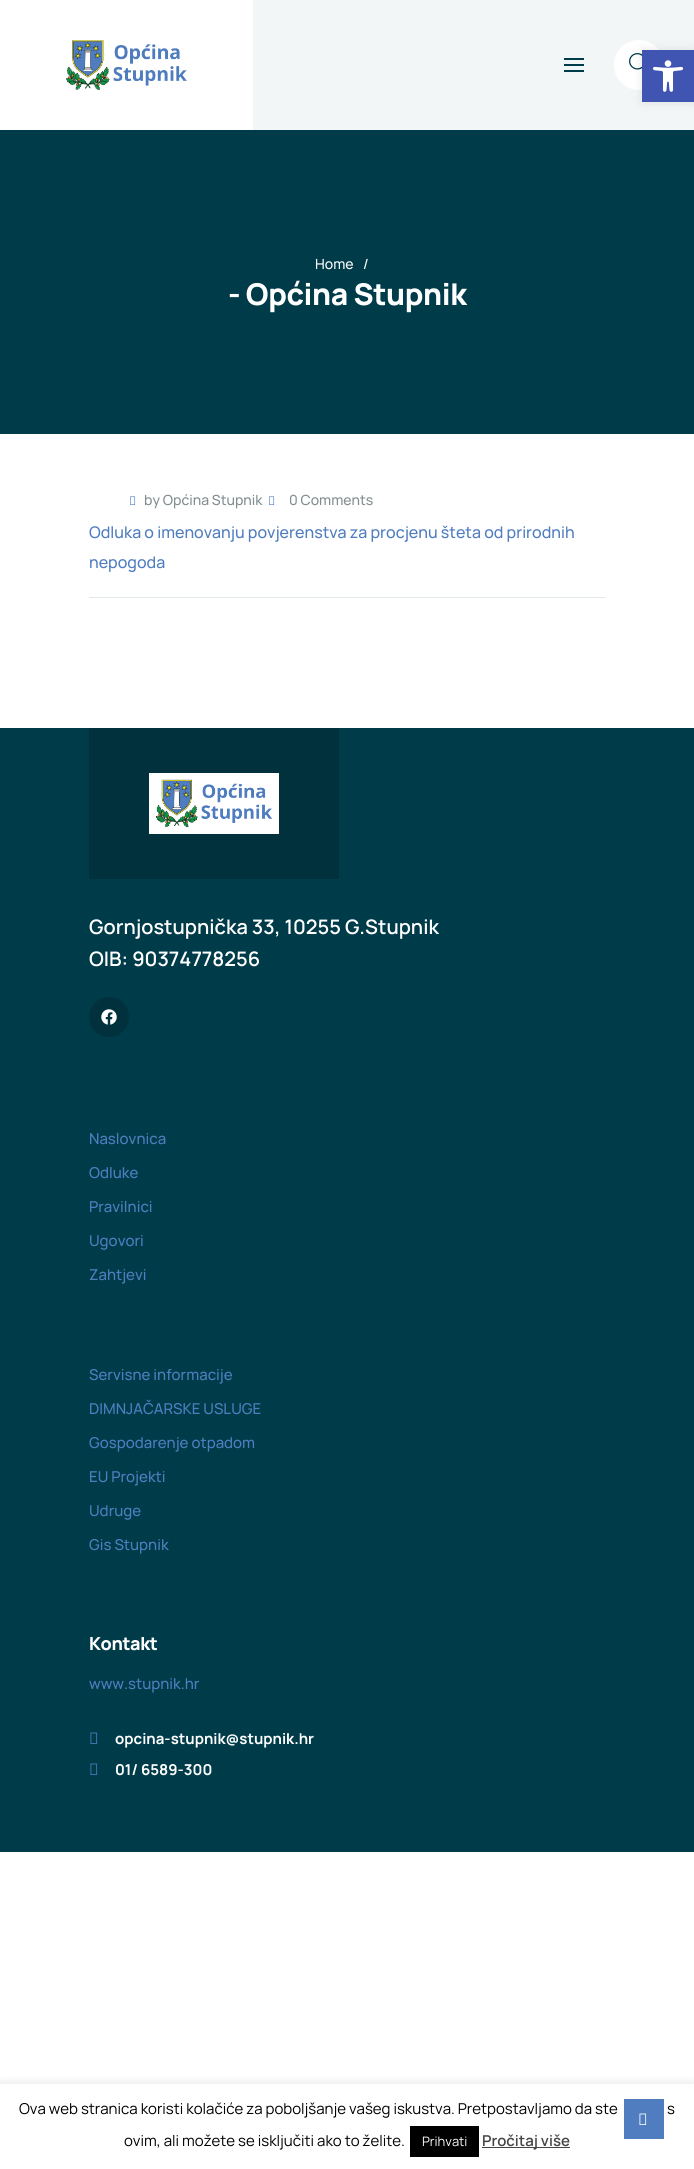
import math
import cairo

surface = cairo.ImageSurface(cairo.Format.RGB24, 694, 2169)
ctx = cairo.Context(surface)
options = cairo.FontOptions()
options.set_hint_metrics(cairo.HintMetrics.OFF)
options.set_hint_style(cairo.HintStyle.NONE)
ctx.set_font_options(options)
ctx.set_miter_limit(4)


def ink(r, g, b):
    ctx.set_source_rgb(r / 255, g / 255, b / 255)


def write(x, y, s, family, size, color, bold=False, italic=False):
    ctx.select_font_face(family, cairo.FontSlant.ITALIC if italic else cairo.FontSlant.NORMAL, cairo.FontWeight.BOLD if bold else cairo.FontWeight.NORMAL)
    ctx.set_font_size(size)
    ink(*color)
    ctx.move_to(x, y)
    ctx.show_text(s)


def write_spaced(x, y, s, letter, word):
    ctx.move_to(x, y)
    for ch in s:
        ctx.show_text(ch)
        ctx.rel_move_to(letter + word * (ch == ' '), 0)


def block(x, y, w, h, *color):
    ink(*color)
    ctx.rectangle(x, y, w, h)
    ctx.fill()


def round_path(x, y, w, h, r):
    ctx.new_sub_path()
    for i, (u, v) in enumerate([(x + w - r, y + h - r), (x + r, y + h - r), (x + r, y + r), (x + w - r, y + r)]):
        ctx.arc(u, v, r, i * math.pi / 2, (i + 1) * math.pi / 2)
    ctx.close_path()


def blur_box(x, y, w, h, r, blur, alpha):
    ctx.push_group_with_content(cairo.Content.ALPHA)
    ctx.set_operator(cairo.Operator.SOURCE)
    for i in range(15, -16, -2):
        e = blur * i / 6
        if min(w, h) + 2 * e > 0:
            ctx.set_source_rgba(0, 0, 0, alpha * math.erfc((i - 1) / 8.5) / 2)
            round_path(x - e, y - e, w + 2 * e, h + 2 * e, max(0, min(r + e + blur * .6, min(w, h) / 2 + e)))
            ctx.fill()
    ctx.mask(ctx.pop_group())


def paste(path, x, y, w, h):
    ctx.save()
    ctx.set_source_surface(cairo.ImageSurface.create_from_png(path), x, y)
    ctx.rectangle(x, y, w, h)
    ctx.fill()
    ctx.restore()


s1 = dict(family="Manrope Medium", size=14, color=(255, 255, 255))
s2 = dict(family="Manrope Medium", size=14, color=(131, 142, 145))
s3 = dict(family="Manrope Medium", size=16, color=(79, 125, 191))
s4 = dict(family="Manrope SemiBold", size=20, color=(255, 255, 255))
s5 = dict(family="Manrope Medium", size=15, color=(79, 125, 191))
s6 = dict(family="Manrope", size=15, color=(255, 255, 255), bold=True)
s7 = dict(family="Manrope", size=15, color=(0, 0, 0))
s8 = dict(family="Manrope", size=13, color=(255, 255, 255))
s9 = dict(family="Manrope SemiBold", size=15, color=(68, 68, 68))

ink(255, 255, 255)
ctx.paint()
block(253, 0, 441, 130, 243, 246, 247)
paste("pic1.png", 66, 40, 121, 50)
block(564, 58, 20, 2, 0, 59, 73)
block(564, 64, 20, 2, 0, 59, 73)
block(564, 70, 20, 2, 0, 59, 73)
ink(255, 255, 255)
ctx.arc(639, 65, 25, 0, 2 * math.pi)
ctx.fill()
paste("pic2.png", 629, 53, 13, 17)
ink(0, 0, 0)
blur_box(642, 50, 52, 52, 0, 5, 0.1)
block(642, 50, 52, 52, 64, 84, 178)
paste("pic3.png", 653, 60, 30, 32)
block(0, 130, 694, 304, 0, 59, 73)
write(315, 269, "Home", **s1)
write(363, 269, "/", **s1)
ctx.select_font_face("Manrope ExtraBold")
ctx.set_font_size(30)
write_spaced(228, 305, "- Općina Stupnik", -0.4, 0)
paste("pic4.png", 130, 496, 6, 9)
write(144, 505, "by Općina Stupnik", **s2)
paste("pic4.png", 269, 496, 6, 9)
write(289, 505, "0 Comments", **s2)
block(89, 597, 516, 1, 225, 232, 234)
write(89, 538, "Odluka o imenovanju povjerenstva za procjenu šteta od prirodnih", **s3)
write(89, 568, "nepogoda", **s3)
block(0, 728, 694, 1124, 0, 59, 73)
block(89, 728, 250, 151, 1, 49, 60)
paste("pic5.png", 149, 773, 130, 61)
write(89, 934, "Gornjostupnička 33, 10255 G.Stupnik", **s4)
write(89, 966, "OIB: 90374778256", **s4)
ink(1, 49, 60)
ctx.new_path()
ctx.arc(109, 1017, 20, 0, 2 * math.pi)
ctx.fill()
paste("pic6.png", 101, 1009, 16, 16)
write(89, 1144, "Naslovnica", **s5)
write(89, 1178, "Odluke", **s5)
write(89, 1212, "Pravilnici", **s5)
write(89, 1246, "Ugovori", **s5)
write(89, 1280, "Zahtjevi", **s5)
write(89, 1380, "Servisne informacije", **s5)
write(89, 1414, "DIMNJAČARSKE USLUGE", **s5)
write(89, 1448, "Gospodarenje otpadom", **s5)
write(89, 1482, "EU Projekti", **s5)
write(89, 1516, "Udruge", **s5)
write(89, 1550, "Gis Stupnik", **s5)
ctx.select_font_face("Manrope ExtraBold")
ctx.set_font_size(18)
ink(255, 255, 255)
write_spaced(89, 1650, "Kontakt", -0.4, 0)
write(89, 1689, "www.stupnik.hr", **s5)
paste("pic7.png", 90, 1732, 8, 12)
write(115, 1744, "opcina-stupnik@stupnik.hr", **s6)
paste("pic7.png", 90, 1763, 8, 12)
write(115, 1775, "01/ 6589-300", **s6)
ctx.save()
ctx.rectangle(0, 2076, 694, 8)
ctx.clip()
ink(172, 171, 171)
blur_box(0, 2083, 694, 85, 0, 5, 0.3)
ctx.restore()
block(624, 2099, 40, 40, 79, 125, 191)
paste("pic8.png", 639, 2113, 8, 12)
write(19, 2114, "Ova web stranica koristi kolačiće za poboljšanje vašeg iskustva. Pretpostavljamo da ste", **s7)
write(667, 2114, "s", **s7)
write(124, 2146, "ovim, ali možete se isključiti ako to želite.", **s7)
block(410, 2126, 69, 31, 0, 0, 0)
write(422, 2146, "Prihvati", **s8)
block(482, 2147, 88, 1, 68, 68, 68)
write(482, 2146, "Pročitaj više", **s9)
surface.write_to_png("screenshot.png")
